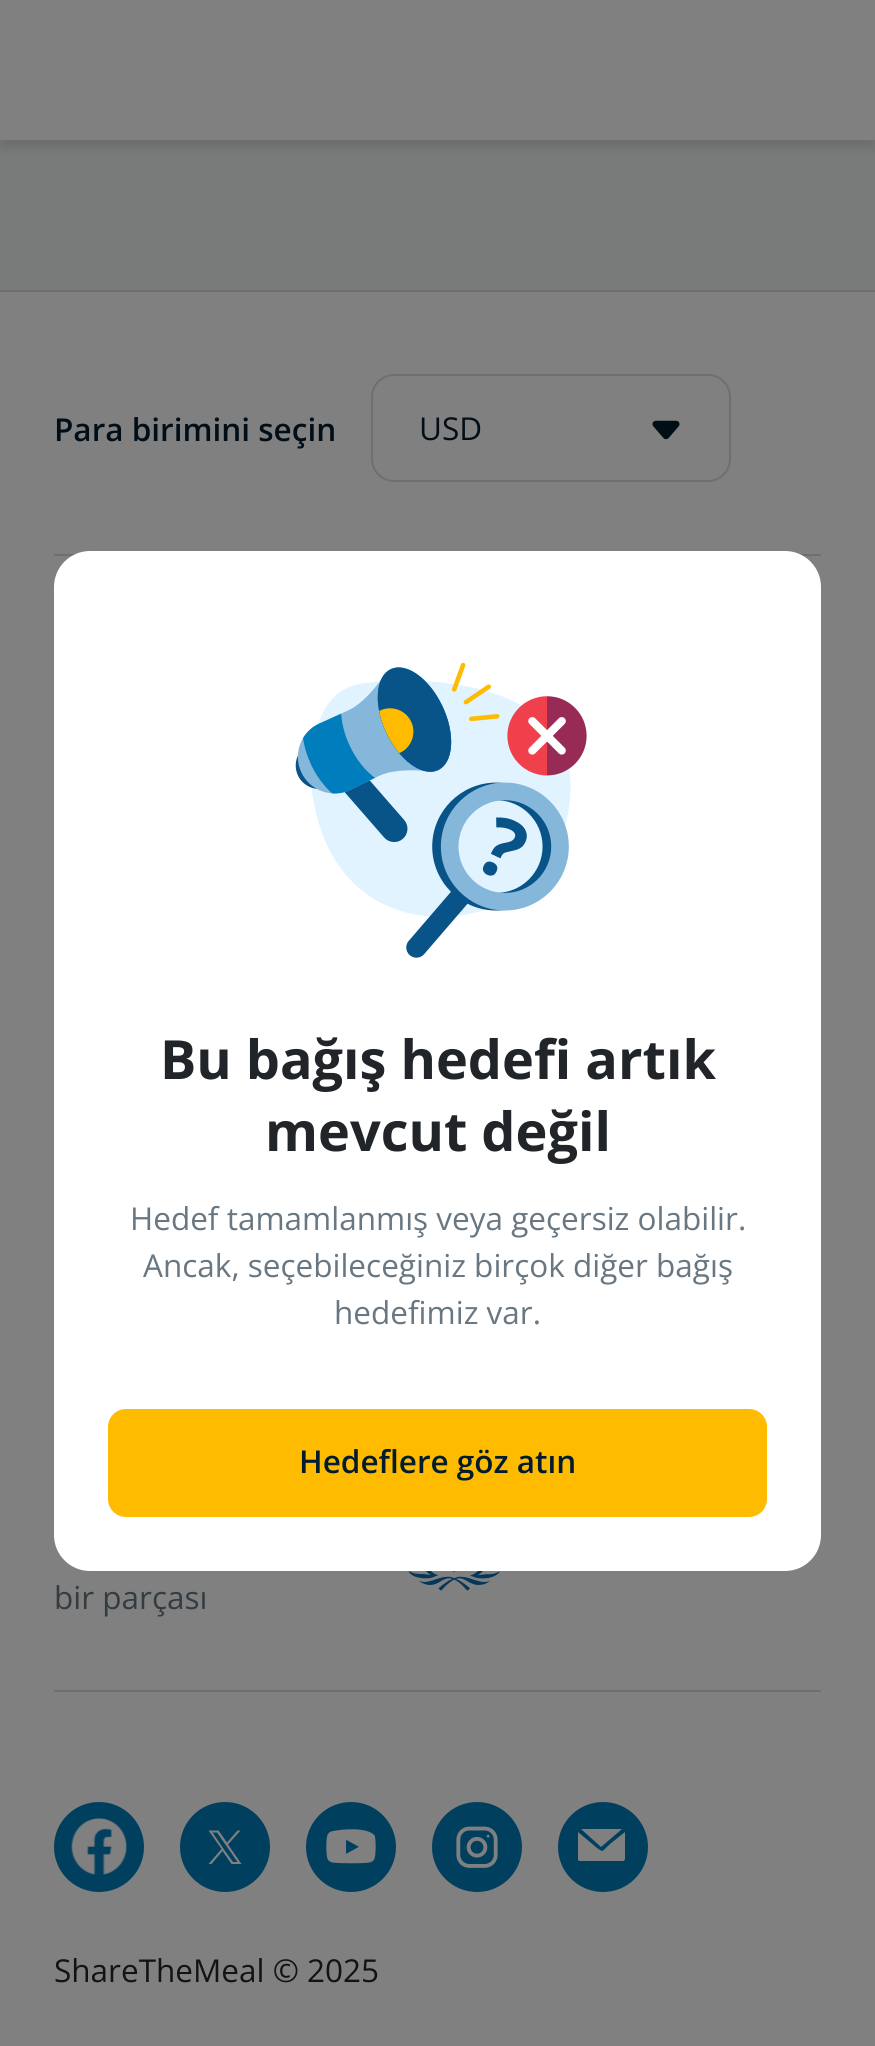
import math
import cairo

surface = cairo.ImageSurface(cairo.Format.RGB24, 875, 2046)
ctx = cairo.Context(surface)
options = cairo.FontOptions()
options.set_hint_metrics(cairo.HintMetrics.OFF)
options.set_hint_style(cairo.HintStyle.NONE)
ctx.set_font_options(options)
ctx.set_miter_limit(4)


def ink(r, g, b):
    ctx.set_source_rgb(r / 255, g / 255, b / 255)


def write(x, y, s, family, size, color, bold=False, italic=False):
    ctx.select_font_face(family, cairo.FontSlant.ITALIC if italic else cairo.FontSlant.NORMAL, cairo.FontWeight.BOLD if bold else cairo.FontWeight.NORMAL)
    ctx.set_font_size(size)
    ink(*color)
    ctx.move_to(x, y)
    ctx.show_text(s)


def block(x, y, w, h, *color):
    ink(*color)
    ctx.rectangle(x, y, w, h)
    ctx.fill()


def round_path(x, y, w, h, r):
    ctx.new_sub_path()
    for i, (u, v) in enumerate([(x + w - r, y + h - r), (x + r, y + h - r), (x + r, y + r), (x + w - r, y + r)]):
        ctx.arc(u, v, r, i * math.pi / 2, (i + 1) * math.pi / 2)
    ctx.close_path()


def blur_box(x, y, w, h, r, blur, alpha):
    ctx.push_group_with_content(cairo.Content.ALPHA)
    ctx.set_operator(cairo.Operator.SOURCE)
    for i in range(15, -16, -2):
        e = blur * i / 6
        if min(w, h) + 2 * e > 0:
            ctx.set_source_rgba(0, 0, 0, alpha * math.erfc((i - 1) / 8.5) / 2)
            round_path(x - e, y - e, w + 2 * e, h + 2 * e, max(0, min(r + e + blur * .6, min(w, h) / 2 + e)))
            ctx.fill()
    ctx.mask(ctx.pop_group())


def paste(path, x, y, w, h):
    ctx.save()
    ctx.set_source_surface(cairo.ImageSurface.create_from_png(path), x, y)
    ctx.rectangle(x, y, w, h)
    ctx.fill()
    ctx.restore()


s1 = dict(family="Open Sans SemiBold", size=31.5, color=(2, 14, 23))
s2 = dict(family="Open Sans", size=31.5, color=(2, 14, 23))
s3 = dict(family="Open Sans", size=31.5, color=(52, 60, 65))
s4 = dict(family="Open Sans", size=31.5, color=(17, 19, 21))
s5 = dict(family="Open Sans", size=54, color=(33, 37, 41), bold=True)
s6 = dict(family="Open Sans", size=31.5, color=(104, 119, 129))
s7 = dict(family="Open Sans SemiBold", size=31.5, color=(3, 28, 45))

ink(121, 122, 122)
ctx.paint()
ink(0, 0, 0)
blur_box(0, 9, 875, 140, 0, 4.5, 0.1)
block(0, 0, 875, 140, 128, 128, 128)
block(0, 292, 875, 1754, 128, 128, 128)
block(0, 290, 875, 2, 109, 111, 112)
write(54, 441, "Para birimini seçin", **s1)
round_path(372, 375, 358, 106, 22)
ink(109, 111, 112)
ctx.stroke()
write(419, 440, "USD", **s2)
paste("pic1.png", 652, 420, 28, 20)
block(54, 554, 767, 2, 109, 111, 112)
paste("pic2.png", 408, 1571, 92, 20)
write(54, 1609, "bir parçası", **s3)
block(54, 1690, 767, 2, 109, 111, 112)
ink(0, 63, 94)
ctx.new_path()
ctx.arc(99, 1847, 45, 0, 2 * math.pi)
ctx.fill()
paste("pic3.png", 71, 1818, 56, 57)
ctx.arc(225, 1847, 45, 0, 2 * math.pi)
ctx.fill()
ink(128, 128, 128)
ctx.new_path()
ctx.move_to(228, 1844.5)
ctx.line_to(240.5, 1830.5)
ctx.line_to(237.5, 1830.5)
ctx.line_to(227, 1842.5)
ctx.line_to(218.5, 1830.5)
ctx.line_to(208.5, 1830.5)
ctx.line_to(221.5, 1849)
ctx.line_to(208.5, 1864)
ctx.line_to(211.5, 1864)
ctx.line_to(222.5, 1851)
ctx.line_to(231.5, 1864)
ctx.line_to(241.5, 1864)
ctx.close_path()
ctx.move_to(224, 1849.5)
ctx.line_to(212.5, 1832.5)
ctx.line_to(217, 1832.5)
ctx.line_to(237.5, 1862)
ctx.line_to(233, 1862)
ctx.close_path()
ctx.fill()
ink(0, 63, 94)
ctx.arc(351, 1847, 45, 0, 2 * math.pi)
ctx.fill()
paste("pic4.png", 326, 1829, 50, 35)
ctx.arc(477, 1847, 45, 0, 2 * math.pi)
ctx.fill()
paste("pic5.png", 456, 1826, 42, 42)
ctx.arc(603, 1847, 45, 0, 2 * math.pi)
ctx.fill()
ctx.save()
ctx.rectangle(578, 1829, 50, 36)
ctx.clip()
ink(128, 128, 128)
ctx.new_path()
ctx.move_to(622, 1829)
ctx.line_to(601, 1847)
ctx.line_to(581, 1829)
ctx.close_path()
ctx.move_to(625, 1859)
ctx.line_to(624, 1861)
ctx.line_to(580, 1861)
ctx.curve_to(577, 1861, 578, 1857, 578, 1855)
ctx.line_to(578, 1832)
ctx.line_to(597, 1848)
ctx.curve_to(604, 1853, 602, 1851, 610, 1844)
ctx.line_to(625, 1832)
ctx.close_path()
ctx.fill()
ctx.restore()
write(54, 1982, "ShareTheMeal © 2025", **s4)
ink(255, 255, 255)
round_path(54, 551, 767, 1020, 36)
ctx.fill()
paste("pic6.png", 295, 662, 292, 296)
write(160, 1079, "Bu bağış hedefi artık", **s5)
write(265, 1151, "mevcut değil", **s5)
write(130, 1230, "Hedef tamamlanmış veya geçersiz olabilir.", **s6)
write(143, 1277, "Ancak, seçebileceğiniz birçok diğer bağış", **s6)
write(334, 1324, "hedefimiz var.", **s6)
ink(254, 187, 0)
round_path(109, 1410, 657, 106, 17)
ctx.fill_preserve()
ctx.stroke()
write(299, 1473, "Hedeflere göz atın", **s7)
surface.write_to_png("screenshot.png")
